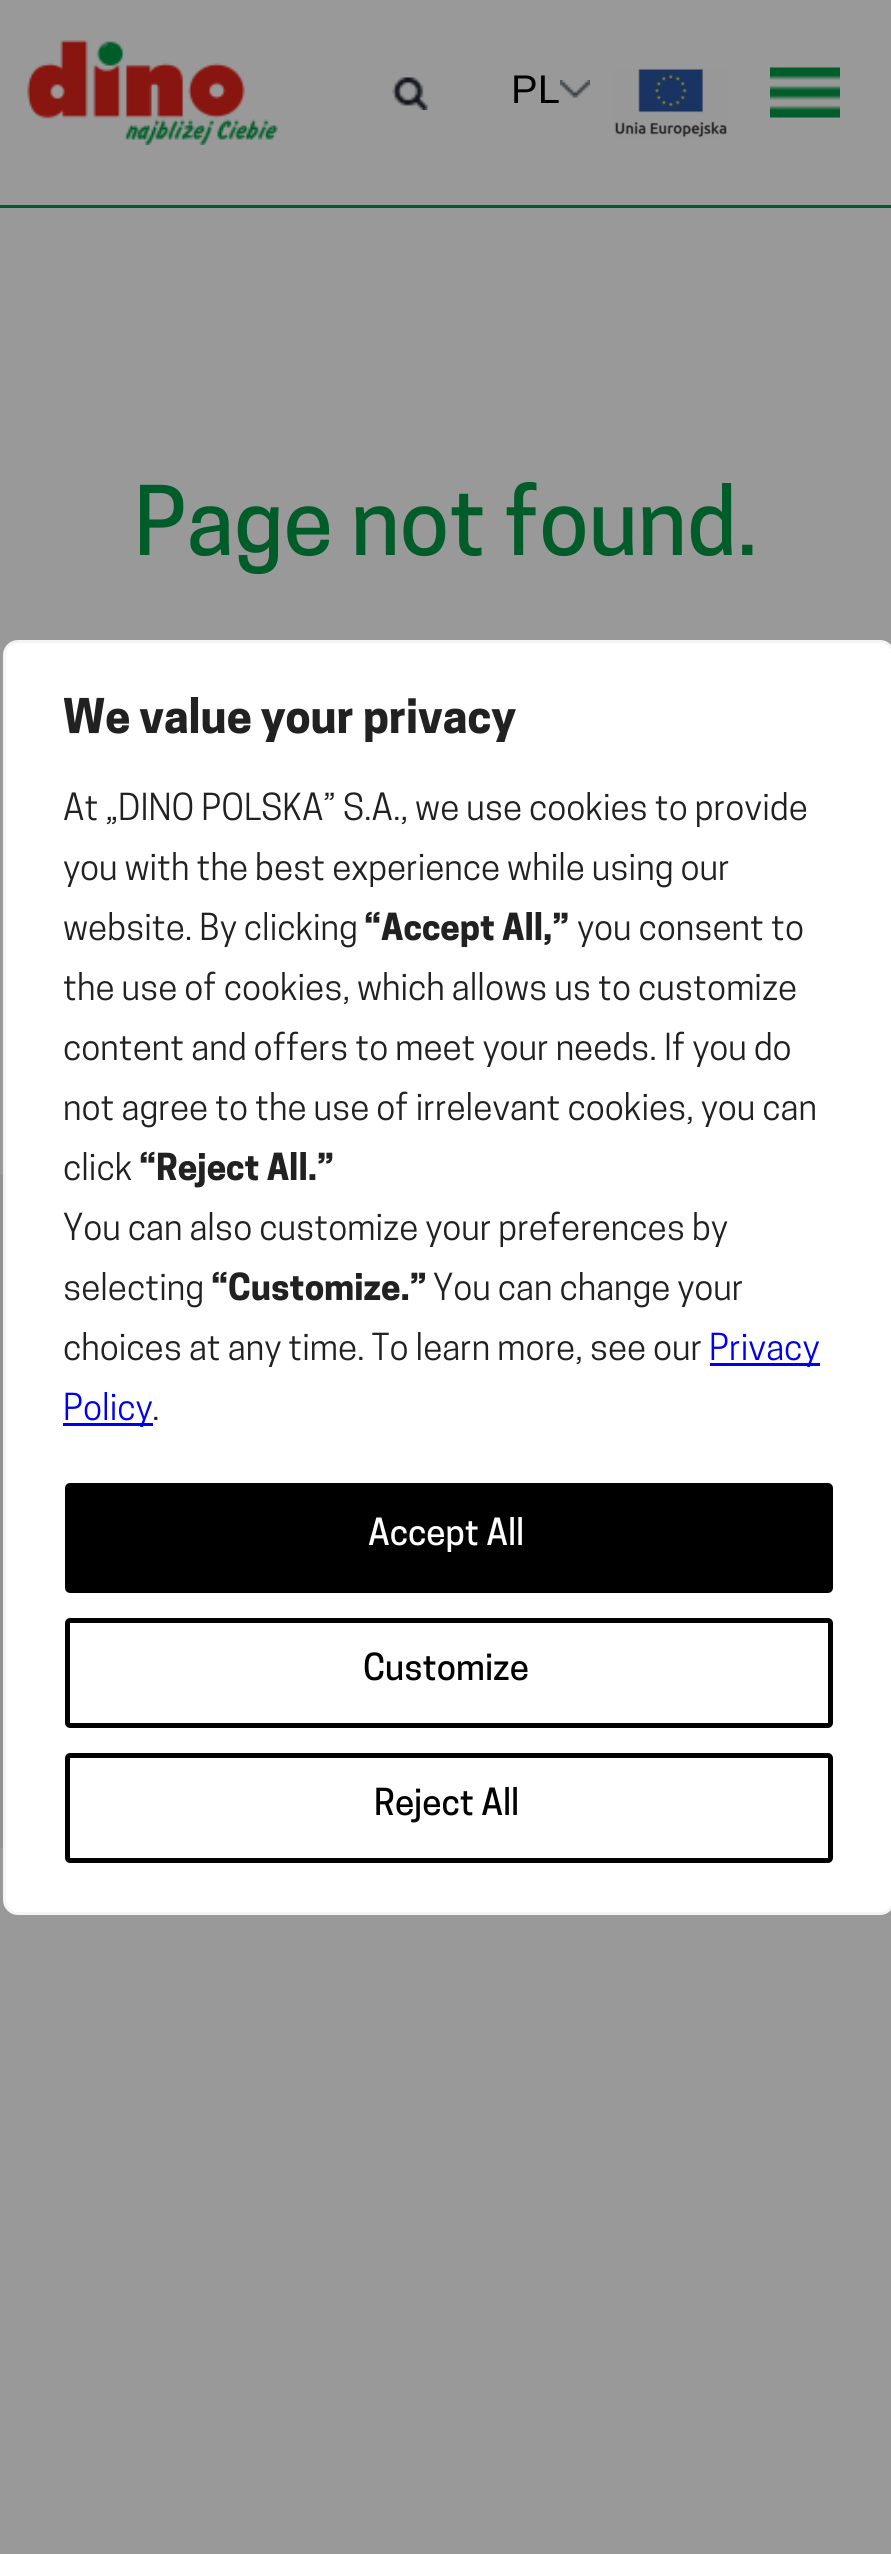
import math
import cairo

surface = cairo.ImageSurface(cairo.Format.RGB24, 891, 2554)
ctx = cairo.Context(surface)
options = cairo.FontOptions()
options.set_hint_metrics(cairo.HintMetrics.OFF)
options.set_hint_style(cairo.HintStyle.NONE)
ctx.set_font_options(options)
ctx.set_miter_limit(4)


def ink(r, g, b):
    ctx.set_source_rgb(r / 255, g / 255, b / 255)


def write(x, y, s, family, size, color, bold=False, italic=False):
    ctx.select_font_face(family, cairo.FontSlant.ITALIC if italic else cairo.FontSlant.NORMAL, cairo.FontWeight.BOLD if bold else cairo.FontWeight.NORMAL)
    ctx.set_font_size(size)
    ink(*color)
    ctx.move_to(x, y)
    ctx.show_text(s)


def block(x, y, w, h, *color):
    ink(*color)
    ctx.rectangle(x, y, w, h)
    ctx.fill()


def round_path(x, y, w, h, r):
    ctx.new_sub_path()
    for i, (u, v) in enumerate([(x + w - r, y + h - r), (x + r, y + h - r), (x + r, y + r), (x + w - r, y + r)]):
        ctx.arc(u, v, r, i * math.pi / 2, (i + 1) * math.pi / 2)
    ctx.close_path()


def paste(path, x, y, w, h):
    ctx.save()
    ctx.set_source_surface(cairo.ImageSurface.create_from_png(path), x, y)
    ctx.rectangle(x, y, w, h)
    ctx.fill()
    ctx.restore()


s1 = dict(family="Liberation Sans", size=40, color=(0, 0, 0))
s2 = dict(family="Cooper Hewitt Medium", size=90, color=(0, 92, 40))
s3 = dict(family="Cooper Hewitt", size=45, color=(33, 33, 33), bold=True)
s4 = dict(family="Cooper Hewitt", size=35, color=(33, 33, 33))
s5 = dict(family="Cooper Hewitt", size=35, color=(33, 33, 33), bold=True)
s6 = dict(family="Cooper Hewitt", size=35, color=(0, 0, 238))
s7 = dict(family="Cooper Hewitt Medium", size=35, color=(255, 255, 255))
s8 = dict(family="Cooper Hewitt Medium", size=35, color=(0, 0, 0))

ink(153, 153, 153)
ctx.paint()
block(0, 205, 891, 3, 0, 92, 40)
paste("pic1.png", 27, 40, 251, 105)
paste("pic2.png", 392, 77, 36, 33)
paste("pic3.png", 560, 80, 30, 18)
write(511, 103, "PL", **s1)
paste("pic4.png", 614, 68, 113, 70)
paste("pic5.png", 770, 67, 70, 51)
write(134, 555, "Page not found.", **s2)
block(0, 1175, 3, 673, 145, 145, 146)
ink(255, 255, 255)
round_path(4.5, 641.5, 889, 1272, 13.5)
ctx.fill_preserve()
ink(244, 244, 244)
ctx.set_line_width(3)
ctx.stroke()
write(63, 733, "We value your privacy", **s3)
write(63, 820, "At „DINO POLSKA” S.A., we use cookies to provide", **s4)
write(63, 880, "you with the best experience while using our", **s4)
write(63, 940, "website. By clicking", **s4)
write(364, 940, "“Accept All,”", **s5)
write(577, 940, "you consent to", **s4)
write(63, 1000, "the use of cookies, which allows us to customize", **s4)
write(63, 1060, "content and offers to meet your needs. If you do", **s4)
write(63, 1120, "not agree to the use of irrelevant cookies, you can", **s4)
write(63, 1180, "click", **s4)
write(139, 1180, "“Reject All.”", **s5)
write(63, 1240, "You can also customize your preferences by", **s4)
write(63, 1300, "selecting", **s4)
write(211, 1300, "“Customize.”", **s5)
write(433, 1300, "You can change your", **s4)
write(63, 1360, "choices at any time. To learn more, see our", **s4)
block(710, 1363, 110, 3, 0, 0, 238)
write(709, 1360, "Privacy", **s6)
block(63, 1423, 90, 3, 0, 0, 238)
write(63, 1420, "Policy", **s6)
write(152, 1420, ".", **s4)
ink(0, 0, 0)
round_path(67.5, 1485.5, 763, 105, 2.5)
ctx.fill_preserve()
ctx.set_line_width(5)
ctx.stroke()
write(368, 1545, "Accept All", **s7)
round_path(67.5, 1620.5, 763, 105, 2.5)
ink(0, 0, 0)
ctx.stroke()
write(363, 1680, "Customize", **s8)
round_path(67.5, 1755.5, 763, 105, 2.5)
ctx.stroke()
write(374, 1815, "Reject All", **s8)
surface.write_to_png("screenshot.png")
